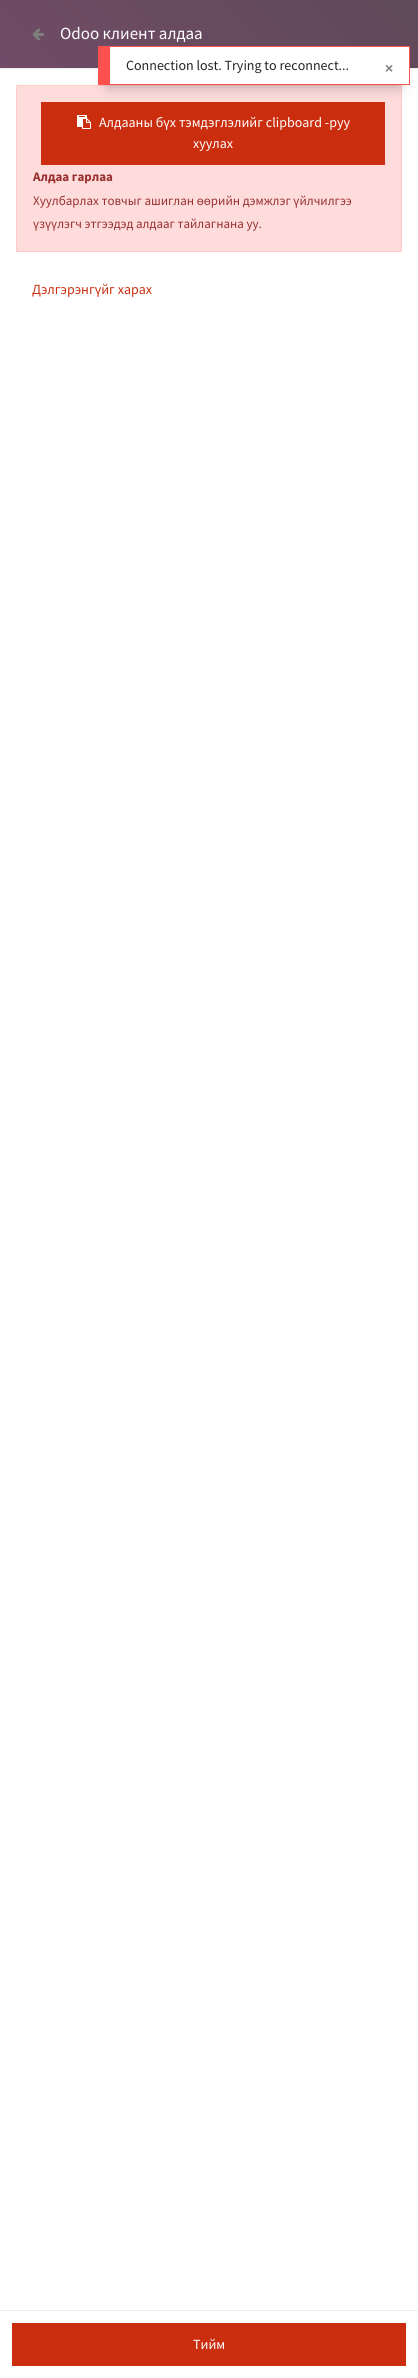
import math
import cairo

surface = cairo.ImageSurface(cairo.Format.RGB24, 418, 2378)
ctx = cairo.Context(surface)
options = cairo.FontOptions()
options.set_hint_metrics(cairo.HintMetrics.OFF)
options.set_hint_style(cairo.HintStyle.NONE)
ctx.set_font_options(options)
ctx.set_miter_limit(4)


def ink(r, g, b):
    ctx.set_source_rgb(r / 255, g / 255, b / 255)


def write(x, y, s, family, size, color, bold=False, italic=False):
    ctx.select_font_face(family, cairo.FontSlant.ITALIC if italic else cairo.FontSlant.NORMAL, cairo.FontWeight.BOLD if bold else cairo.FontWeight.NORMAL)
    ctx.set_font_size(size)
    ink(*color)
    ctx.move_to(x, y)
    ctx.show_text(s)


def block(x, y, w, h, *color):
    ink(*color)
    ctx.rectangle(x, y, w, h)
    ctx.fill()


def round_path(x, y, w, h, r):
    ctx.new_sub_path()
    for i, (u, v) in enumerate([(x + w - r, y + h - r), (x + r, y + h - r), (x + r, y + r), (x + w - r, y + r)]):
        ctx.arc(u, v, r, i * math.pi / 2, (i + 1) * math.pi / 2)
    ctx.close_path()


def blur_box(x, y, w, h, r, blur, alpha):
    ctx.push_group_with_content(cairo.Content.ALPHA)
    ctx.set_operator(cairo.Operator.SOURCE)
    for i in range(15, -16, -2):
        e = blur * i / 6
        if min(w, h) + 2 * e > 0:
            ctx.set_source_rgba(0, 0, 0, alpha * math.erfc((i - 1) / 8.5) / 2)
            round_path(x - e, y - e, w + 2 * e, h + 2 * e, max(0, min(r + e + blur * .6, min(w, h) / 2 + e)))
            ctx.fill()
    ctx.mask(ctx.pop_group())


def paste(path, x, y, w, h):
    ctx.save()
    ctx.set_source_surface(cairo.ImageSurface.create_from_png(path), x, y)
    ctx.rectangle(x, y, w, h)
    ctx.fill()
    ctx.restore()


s1 = dict(family="Source Sans Pro", size=17, color=(255, 255, 255))
s2 = dict(family="Source Sans Pro", size=14, color=(255, 255, 255))
s3 = dict(family="Source Sans Pro", size=13, color=(153, 48, 48), bold=True)
s4 = dict(family="Source Sans Pro", size=13, color=(153, 48, 48))
s5 = dict(family="Source Sans Pro", size=14, color=(203, 46, 15))
s6 = dict(family="Source Sans Pro", size=14, color=(33, 37, 41))
s7 = dict(family="Liberation Sans", size=14, color=(126, 126, 126), bold=True)

ink(255, 255, 255)
ctx.paint()
gradient = cairo.LinearGradient(88, 156, 331, -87)
gradient.add_color_stop_rgba(0, 0.443, 0.294, 0.404, 1)
gradient.add_color_stop_rgba(1, 0.369, 0.29, 0.349, 1)
ctx.set_source(gradient)
ctx.rectangle(0, 0, 418, 68)
ctx.fill()
block(0, 68, 418, 1, 237, 237, 237)
paste("pic1.png", 32, 28, 12, 13)
write(60, 39, "Odoo клиент алдаа", **s1)
ink(255, 220, 220)
ctx.rectangle(16.5, 85.5, 385, 166)
ctx.fill_preserve()
ink(255, 203, 203)
ctx.set_line_width(1)
ctx.stroke()
block(41, 102, 344, 63, 203, 46, 15)
paste("pic2.png", 77, 115, 14, 14)
write(99, 127, "Алдааны бүх тэмдэглэлийг clipboard -руу", **s2)
write(193, 148, "хуулах", **s2)
write(33, 181, "Алдаа гарлаа", **s3)
write(33, 205, "Хуулбарлах товчыг ашиглан өөрийн дэмжлэг үйлчилгээ", **s4)
write(33, 228, "үзүүлэгч этгээдэд алдааг тайлагнана уу.", **s4)
write(32, 294, "Дэлгэрэнгүйг харах", **s5)
block(0, 2310, 418, 1, 237, 237, 237)
block(12, 2323, 394, 43, 203, 46, 15)
write(193, 2349, "Тийм", **s2)
ink(0, 0, 0)
blur_box(108, 68, 292, 19, 0, 7, 0.25)
block(110, 47, 299, 37, 255, 255, 255)
block(110, 46, 300, 1, 255, 80, 80)
block(409, 46, 1, 39, 255, 80, 80)
block(110, 84, 300, 1, 255, 80, 80)
block(98, 46, 12, 39, 255, 80, 80)
write(126, 70, "Connection lost. Trying to reconnect...", **s6)
write(385, 73, "×", **s7)
surface.write_to_png("screenshot.png")
